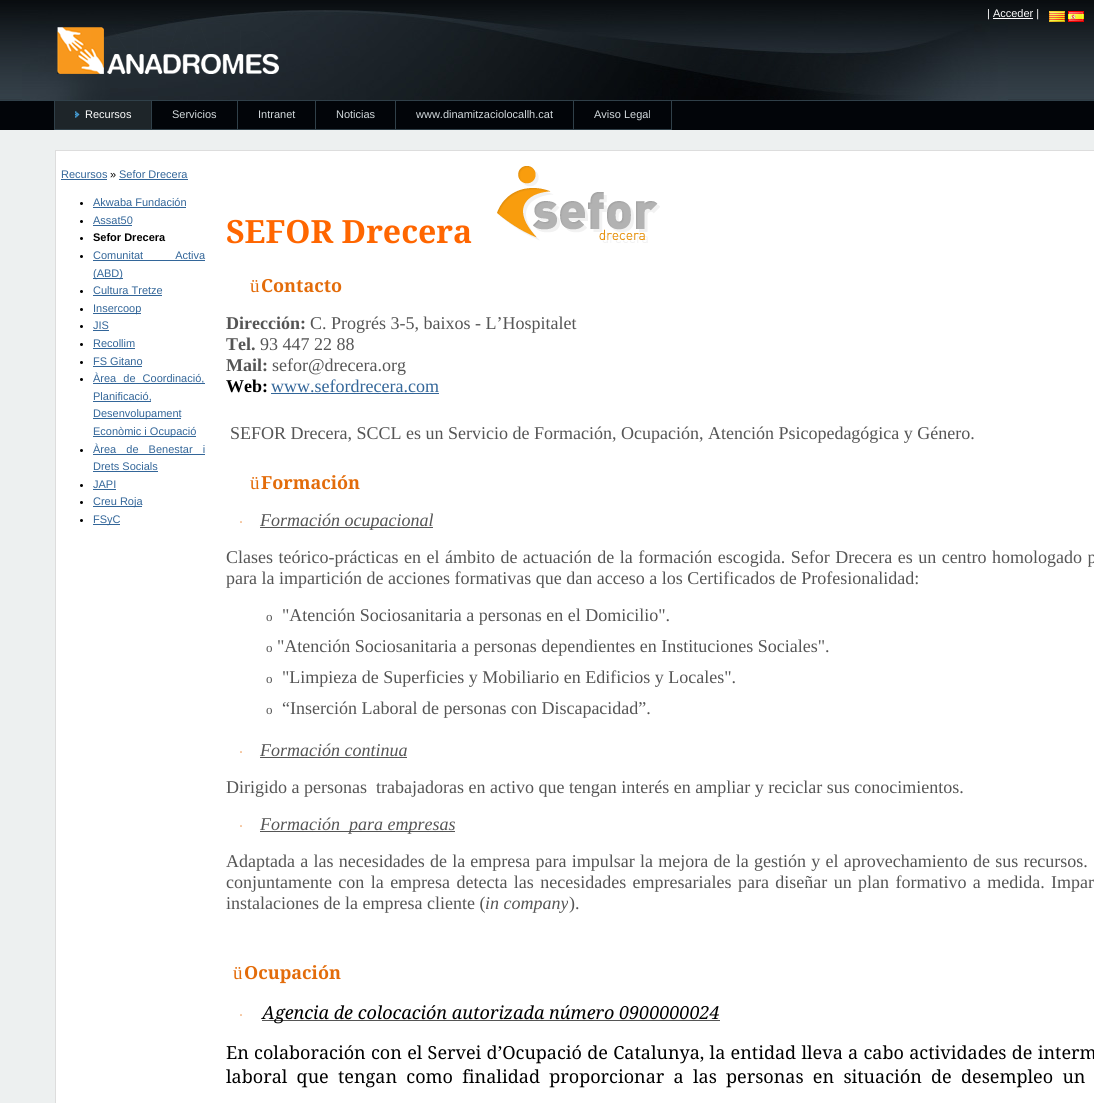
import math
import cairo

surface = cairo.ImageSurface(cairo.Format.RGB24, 1094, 1103)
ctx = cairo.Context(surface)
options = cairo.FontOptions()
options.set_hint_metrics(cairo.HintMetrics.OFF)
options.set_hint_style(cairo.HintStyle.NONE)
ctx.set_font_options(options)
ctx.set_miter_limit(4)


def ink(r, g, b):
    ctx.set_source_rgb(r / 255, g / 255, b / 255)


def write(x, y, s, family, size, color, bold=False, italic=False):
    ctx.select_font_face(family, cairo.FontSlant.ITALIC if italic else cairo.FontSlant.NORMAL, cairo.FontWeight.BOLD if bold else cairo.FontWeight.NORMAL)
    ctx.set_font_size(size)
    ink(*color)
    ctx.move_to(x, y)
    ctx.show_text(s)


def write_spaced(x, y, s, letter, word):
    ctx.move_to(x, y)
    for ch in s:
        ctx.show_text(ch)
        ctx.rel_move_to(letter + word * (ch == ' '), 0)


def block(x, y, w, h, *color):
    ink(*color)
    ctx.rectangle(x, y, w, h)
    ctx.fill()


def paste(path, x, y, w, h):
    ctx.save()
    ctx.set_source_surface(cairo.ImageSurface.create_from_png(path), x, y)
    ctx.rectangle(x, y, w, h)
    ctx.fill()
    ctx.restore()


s1 = dict(family="Liberation Sans", size=11, color=(255, 255, 255))
s2 = dict(family="Liberation Sans", size=11, color=(211, 218, 221))
s3 = dict(family="Liberation Sans", size=11, color=(51, 102, 153))
s4 = dict(family="Liberation Sans", size=11, color=(0, 0, 0))
s5 = dict(family="Liberation Sans", size=11, color=(0, 0, 0), bold=True)
s6 = dict(family="Noto Serif", size=32, color=(255, 102, 0), bold=True)
s7 = dict(family="Liberation Serif", size=19, color=(227, 108, 10))
s8 = dict(family="Noto Serif", size=18, color=(227, 108, 10), bold=True)
s9 = dict(family="Liberation Serif", size=18, color=(85, 85, 85), bold=True)
s10 = dict(family="Liberation Serif", size=18, color=(85, 85, 85))
s11 = dict(family="Liberation Serif", size=18, color=(0, 0, 0), bold=True)
s12 = dict(family="Liberation Serif", size=18, color=(51, 102, 153))
s13 = dict(family="Liberation Serif", size=12, color=(227, 108, 10))
s14 = dict(family="Liberation Serif", size=18, color=(85, 85, 85), italic=True)
s15 = dict(family="Liberation Serif", size=13, color=(85, 85, 85))
s16 = dict(family="Noto Serif", size=18, color=(0, 0, 0), italic=True)

ink(237, 240, 240)
ctx.paint()
paste("pic1.png", 0, 0, 1094, 100)
paste("pic2.png", 22, 10, 986, 90)
write(987, 17, "| Acceder |", **s1)
block(993, 18, 40, 1, 255, 255, 255)
paste("pic3.png", 1049, 11, 16, 11)
paste("pic4.png", 1068, 11, 16, 11)
paste("pic5.png", 57, 27, 222, 47)
block(0, 101, 1094, 29, 2, 5, 9)
block(0, 100, 1094, 1, 48, 64, 73)
ctx.rectangle(54.5, 100.5, 97, 29)
ctx.set_line_width(1)
ctx.stroke()
block(55, 101, 96, 28, 30, 37, 41)
paste("pic6.png", 75, 111, 5, 7)
write(85, 118, "Recursos", **s1)
ctx.rectangle(151.5, 100.5, 86, 29)
ink(48, 64, 73)
ctx.stroke()
write(172, 118, "Servicios", **s2)
ctx.rectangle(237.5, 100.5, 78, 29)
ink(48, 64, 73)
ctx.stroke()
write(258, 118, "Intranet", **s2)
ctx.rectangle(315.5, 100.5, 80, 29)
ink(48, 64, 73)
ctx.stroke()
write(336, 118, "Noticias", **s2)
ctx.rectangle(395.5, 100.5, 178, 29)
ink(48, 64, 73)
ctx.stroke()
write(416, 118, "www.dinamitzaciolocallh.cat", **s2)
ctx.rectangle(573.5, 100.5, 98, 29)
ink(48, 64, 73)
ctx.stroke()
write(594, 118, "Aviso Legal", **s2)
block(56, 151, 1038, 10, 255, 255, 255)
block(55, 150, 1039, 1, 221, 221, 221)
block(55, 160, 1, 943, 221, 221, 221)
block(55, 150, 1, 11, 221, 221, 221)
block(56, 161, 1038, 942, 255, 255, 255)
write(61, 178, "Recursos", **s3)
block(61, 179, 46, 1, 51, 102, 153)
write(110, 178, "»", **s4)
write(119, 178, "Sefor Drecera", **s3)
block(119, 179, 69, 1, 51, 102, 153)
ink(0, 0, 0)
ctx.new_path()
ctx.arc(81.5, 203.5, 1.5, 0, 2 * math.pi)
ctx.fill()
write(93, 206, "Akwaba Fundación", **s3)
block(93, 207, 93, 1, 51, 102, 153)
ink(0, 0, 0)
ctx.new_path()
ctx.arc(81.5, 221.5, 1.5, 0, 2 * math.pi)
ctx.fill()
write(93, 224, "Assat50", **s3)
block(93, 225, 39, 1, 51, 102, 153)
ink(0, 0, 0)
ctx.new_path()
ctx.arc(81.5, 238.5, 1.5, 0, 2 * math.pi)
ctx.fill()
write(93, 241, "Sefor Drecera", **s5)
ctx.new_path()
ctx.arc(81.5, 256.5, 1.5, 0, 2 * math.pi)
ctx.fill()
ctx.select_font_face("Liberation Sans")
ink(51, 102, 153)
write_spaced(93, 259, "Comunitat Activa", 0, 29)
block(93, 260, 112, 1, 51, 102, 153)
block(93, 278, 30, 1, 51, 102, 153)
write(93, 277, "(ABD)", **s3)
ink(0, 0, 0)
ctx.new_path()
ctx.arc(81.5, 291.5, 1.5, 0, 2 * math.pi)
ctx.fill()
write(93, 294, "Cultura Tretze", **s3)
block(93, 295, 69, 1, 51, 102, 153)
ink(0, 0, 0)
ctx.new_path()
ctx.arc(81.5, 309.5, 1.5, 0, 2 * math.pi)
ctx.fill()
block(93, 313, 48, 1, 51, 102, 153)
write(93, 312, "Insercoop", **s3)
ink(0, 0, 0)
ctx.new_path()
ctx.arc(81.5, 326.5, 1.5, 0, 2 * math.pi)
ctx.fill()
write(93, 329, "JIS", **s3)
block(93, 330, 16, 1, 51, 102, 153)
ink(0, 0, 0)
ctx.new_path()
ctx.arc(81.5, 344.5, 1.5, 0, 2 * math.pi)
ctx.fill()
write(93, 347, "Recollim", **s3)
block(93, 348, 42, 1, 51, 102, 153)
ink(0, 0, 0)
ctx.new_path()
ctx.arc(81.5, 362.5, 1.5, 0, 2 * math.pi)
ctx.fill()
write(93, 365, "FS Gitano", **s3)
block(93, 366, 49, 1, 51, 102, 153)
ink(0, 0, 0)
ctx.new_path()
ctx.arc(81.5, 379.5, 1.5, 0, 2 * math.pi)
ctx.fill()
block(93, 383, 112, 1, 51, 102, 153)
write_spaced(93, 382, "Àrea de Coordinació,", 0, 4)
block(93, 401, 58, 1, 51, 102, 153)
write(93, 400, "Planificació,", **s3)
block(93, 418, 88, 1, 51, 102, 153)
write(93, 417, "Desenvolupament", **s3)
block(93, 436, 103, 1, 51, 102, 153)
write(93, 435, "Econòmic i Ocupació", **s3)
ink(0, 0, 0)
ctx.new_path()
ctx.arc(81.5, 450.5, 1.5, 0, 2 * math.pi)
ctx.fill()
ink(51, 102, 153)
write_spaced(93, 453, "Àrea de Benestar i", 0, 7)
block(93, 454, 112, 1, 51, 102, 153)
write(93, 470, "Drets Socials", **s3)
block(93, 471, 65, 1, 51, 102, 153)
ink(0, 0, 0)
ctx.new_path()
ctx.arc(81.5, 485.5, 1.5, 0, 2 * math.pi)
ctx.fill()
write(93, 488, "JAPI", **s3)
block(93, 489, 23, 1, 51, 102, 153)
ink(0, 0, 0)
ctx.new_path()
ctx.arc(81.5, 502.5, 1.5, 0, 2 * math.pi)
ctx.fill()
block(93, 506, 49, 1, 51, 102, 153)
write(93, 505, "Creu Roja", **s3)
ink(0, 0, 0)
ctx.new_path()
ctx.arc(81.5, 520.5, 1.5, 0, 2 * math.pi)
ctx.fill()
block(93, 524, 27, 1, 51, 102, 153)
write(93, 523, "FSyC", **s3)
write(226, 243, "SEFOR Drecera", **s6)
paste("pic7.png", 497, 166, 163, 77)
write(250, 292, "ü", **s7)
write(261, 292, "Contacto", **s8)
write(226, 329, "Dirección:", **s9)
write(310, 329, "C. Progrés 3-5, baixos - L’Hospitalet", **s10)
write(226, 350, "Tel.", **s9)
write(260, 350, "93 447 22 88", **s10)
write(226, 371, "Mail:", **s9)
write(272, 371, "sefor@drecera.org", **s10)
write(226, 392, "Web:", **s11)
write(271, 392, "www.sefordrecera.com", **s12)
block(271, 393, 168, 1, 51, 102, 153)
write(230, 439, "SEFOR Drecera, SCCL es un Servicio de Formación, Ocupación, Atención Psicopedagógica y Género.", **s10)
write(250, 489, "ü", **s7)
write(261, 489, "Formación", **s8)
write(239, 526, "·", **s13)
block(260, 527, 173, 1, 85, 85, 85)
write(260, 526, "Formación ocupacional", **s14)
ctx.select_font_face("Liberation Serif")
write_spaced(226, 563, "Clases teórico-prácticas en el ámbito de actuación de la formación escogida. Sefor Drecera es un centro homologado p", 0, 1)
write(226, 584, "para la impartición de acciones formativas que dan acceso a los Certificados de Profesionalidad:", **s10)
write(266, 621, "o", **s15)
write(282, 621, "\"Atención Sociosanitaria a personas en el Domicilio\".", **s10)
write(266, 652, "o", **s15)
write(277, 652, "\"Atención Sociosanitaria a personas dependientes en Instituciones Sociales\".", **s10)
write(266, 683, "o", **s15)
write(282, 683, "\"Limpieza de Superficies y Mobiliario en Edificios y Locales\".", **s10)
write(266, 714, "o", **s15)
write(282, 714, "“Inserción Laboral de personas con Discapacidad”.", **s10)
write(239, 756, "·", **s13)
write(260, 756, "Formación continua", **s14)
block(260, 757, 147, 1, 85, 85, 85)
write(226, 793, "Dirigido a personas  trabajadoras en activo que tengan interés en ampliar y reciclar sus conocimientos.", **s10)
write(239, 830, "·", **s13)
block(260, 831, 195, 1, 85, 85, 85)
write(260, 830, "Formación  para empresas", **s14)
ctx.select_font_face("Liberation Serif")
write_spaced(226, 867, "Adaptada a las necesidades de la empresa para impulsar la mejora de la gestión y el aprovechamiento de sus recursos.", 0, 0.75)
write_spaced(226, 888, "conjuntamente con la empresa detecta las necesidades empresariales para diseñar un plan formativo a medida. Impar", 0, 1.9)
write(226, 909, "instalaciones de la empresa cliente (", **s10)
write(485, 909, "in company", **s14)
write(569, 909, ").", **s10)
write(233, 979, "ü", **s7)
write(244, 979, "Ocupación", **s8)
write(239, 1019, "·", **s13)
block(262, 1020, 458, 1, 85, 85, 85)
write(262, 1019, "Agencia de colocación autorizada número 0900000024", **s16)
ctx.select_font_face("Noto Serif")
write_spaced(226, 1059, "En colaboración con el Servei d’Ocupació de Catalunya, la entidad lleva a cabo actividades de interm", 0, 0.6)
write_spaced(226, 1083, "laboral que tengan como finalidad proporcionar a las personas en situación de desempleo un", 0, 4.6)
surface.write_to_png("screenshot.png")
